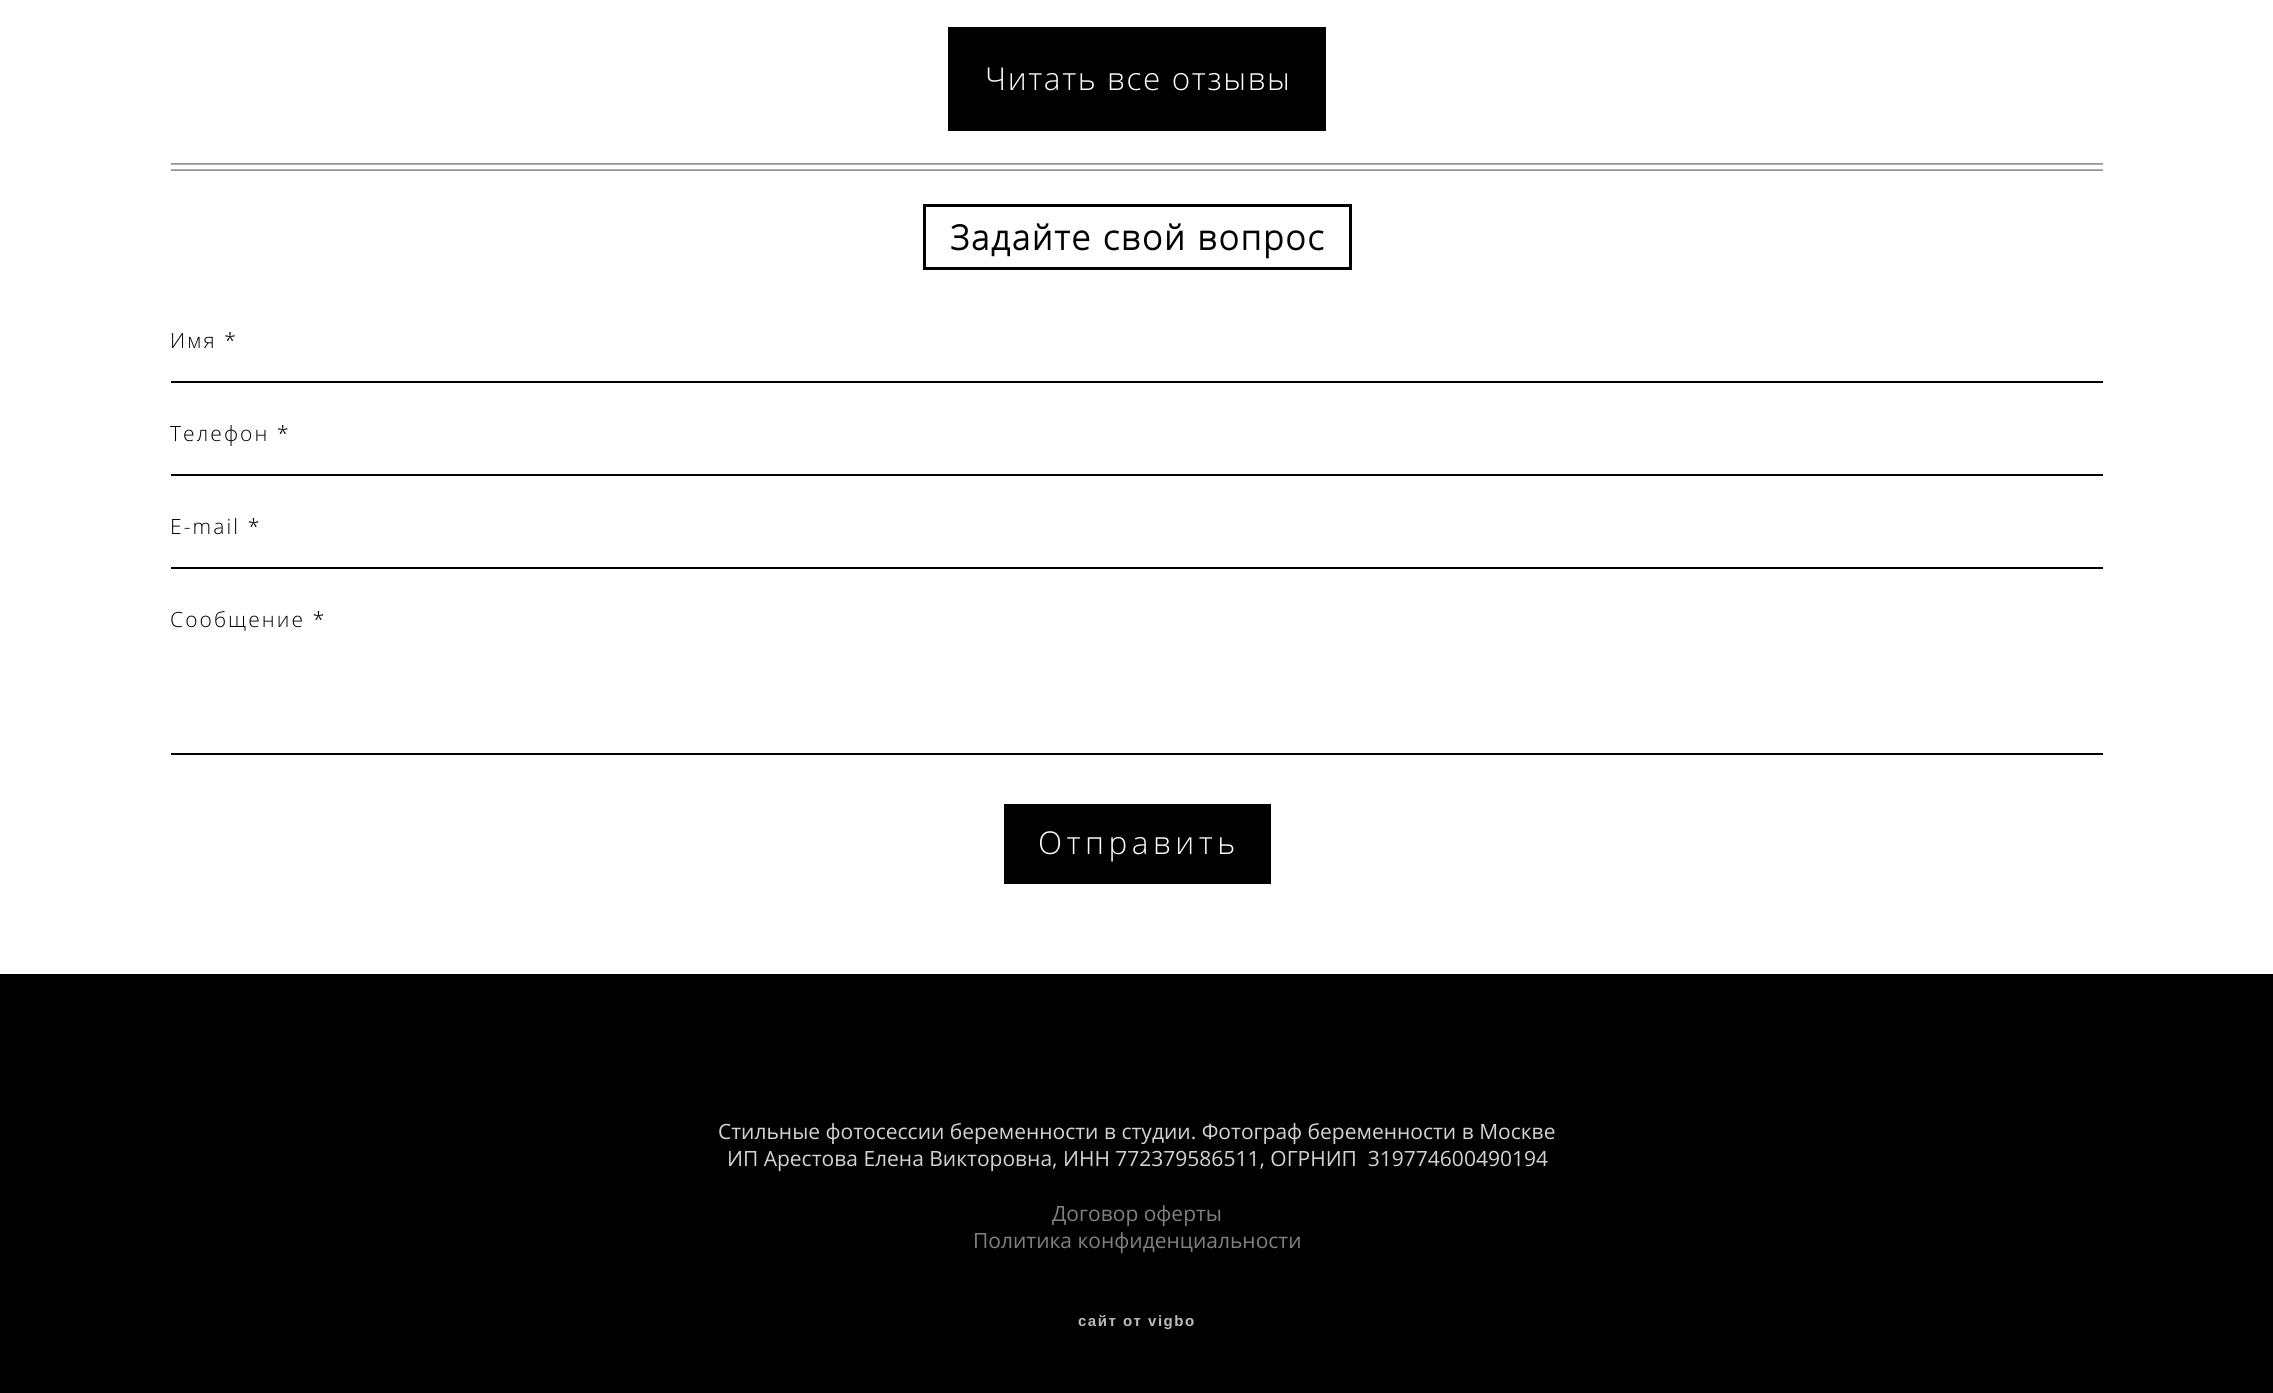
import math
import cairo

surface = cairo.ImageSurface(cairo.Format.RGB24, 2273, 1393)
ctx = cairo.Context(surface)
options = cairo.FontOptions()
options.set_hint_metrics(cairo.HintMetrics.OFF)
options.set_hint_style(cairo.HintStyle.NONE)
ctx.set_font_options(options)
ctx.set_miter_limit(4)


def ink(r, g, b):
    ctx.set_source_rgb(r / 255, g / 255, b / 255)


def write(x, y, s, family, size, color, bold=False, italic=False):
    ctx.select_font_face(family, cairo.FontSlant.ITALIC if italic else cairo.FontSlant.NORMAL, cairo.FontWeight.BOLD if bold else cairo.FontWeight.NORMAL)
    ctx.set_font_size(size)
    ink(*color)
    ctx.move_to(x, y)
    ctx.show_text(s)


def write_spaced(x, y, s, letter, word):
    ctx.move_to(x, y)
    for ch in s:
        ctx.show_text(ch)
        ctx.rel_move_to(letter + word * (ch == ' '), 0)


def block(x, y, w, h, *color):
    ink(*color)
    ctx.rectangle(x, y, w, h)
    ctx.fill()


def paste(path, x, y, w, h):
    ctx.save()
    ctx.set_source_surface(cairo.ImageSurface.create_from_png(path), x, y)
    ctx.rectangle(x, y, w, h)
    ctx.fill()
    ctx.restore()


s1 = dict(family="Open Sans", size=21, color=(211, 211, 211))
s2 = dict(family="Open Sans", size=21, color=(128, 128, 128))

ink(255, 255, 255)
ctx.paint()
block(948, 27, 378, 104, 0, 0, 0)
ctx.select_font_face("Open Sans Light")
ctx.set_font_size(31.5)
ink(255, 255, 255)
write_spaced(985, 90, "Читать все отзывы", 1.6, 0)
paste("pic1.png", 171, 163, 1932, 8)
ctx.rectangle(924.5, 205.5, 426, 63)
ink(0, 0, 0)
ctx.set_line_width(3)
ctx.stroke()
ctx.select_font_face("Open Sans", cairo.FontSlant.NORMAL, cairo.FontWeight.BOLD)
ctx.set_font_size(34.5)
write_spaced(950, 250, "Задайте свой вопрос", 1.75, 0)
block(171, 381, 1932, 2, 0, 0, 0)
ctx.select_font_face("Open Sans Light")
ctx.set_font_size(21)
write_spaced(170, 348, "Имя *", 2.1, 0)
block(171, 474, 1932, 2, 0, 0, 0)
write_spaced(170, 441, "Телефон *", 2.1, 0)
block(171, 567, 1932, 2, 0, 0, 0)
write_spaced(170, 534, "E-mail *", 2.1, 0)
block(171, 753, 1932, 2, 0, 0, 0)
write_spaced(170, 627, "Сообщение *", 2.1, 0)
block(1004, 804, 267, 80, 0, 0, 0)
ctx.set_font_size(31.5)
ink(255, 255, 255)
write_spaced(1038, 854, "Отправить", 4.5, 0)
block(0, 974, 2273, 419, 0, 0, 0)
write(718, 1139, "Стильные фотосессии беременности в студии. Фотограф беременности в Москве", **s1)
write(727, 1166, "ИП Арестова Елена Викторовна, ИНН 772379586511, ОГРНИП  319774600490194", **s1)
write(1052, 1221, "Договор оферты", **s2)
write(973, 1248, "Политика конфиденциальности", **s2)
ctx.select_font_face("Liberation Sans", cairo.FontSlant.NORMAL, cairo.FontWeight.BOLD)
ctx.set_font_size(15)
ink(189, 189, 189)
write_spaced(1078, 1326, "сайт от vigbo", 1.5, 0)
surface.write_to_png("screenshot.png")
